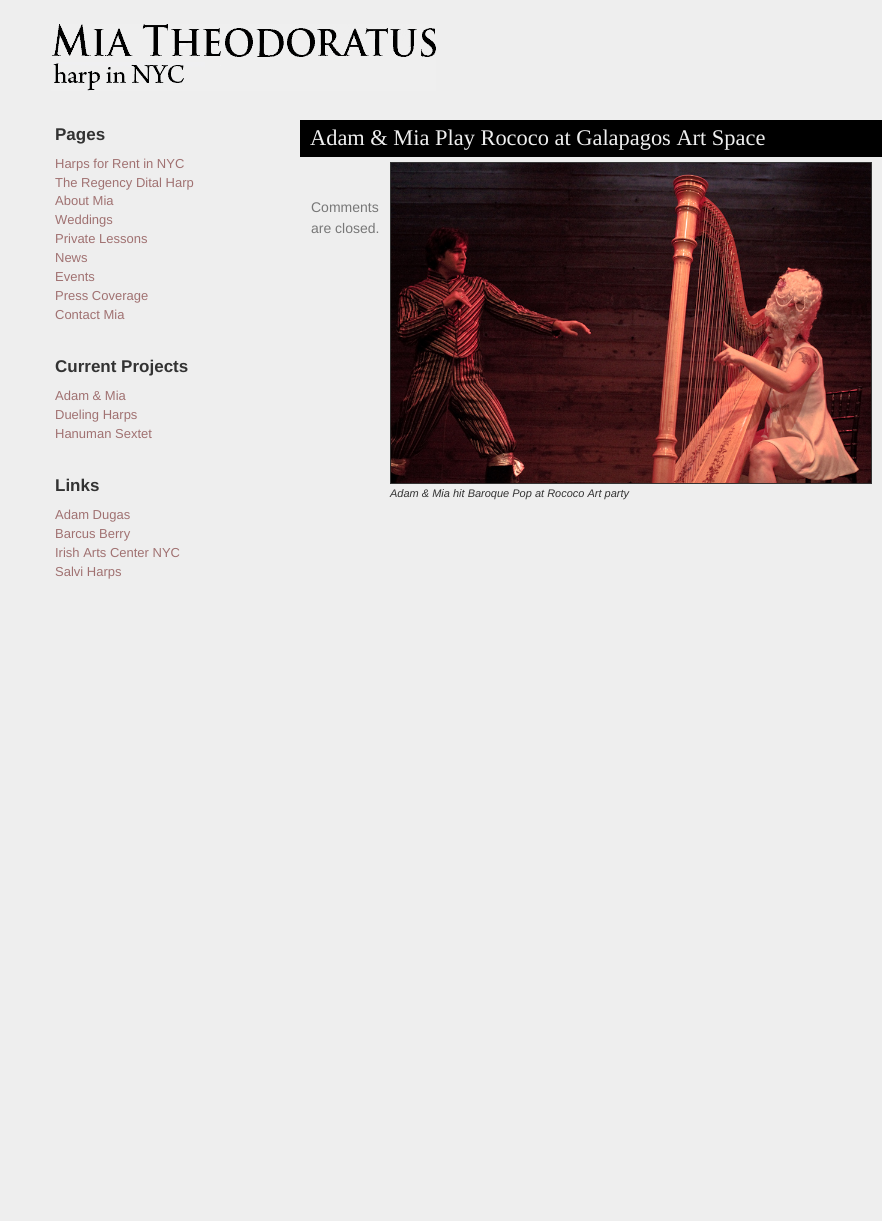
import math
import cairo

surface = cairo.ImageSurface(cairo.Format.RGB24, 882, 1221)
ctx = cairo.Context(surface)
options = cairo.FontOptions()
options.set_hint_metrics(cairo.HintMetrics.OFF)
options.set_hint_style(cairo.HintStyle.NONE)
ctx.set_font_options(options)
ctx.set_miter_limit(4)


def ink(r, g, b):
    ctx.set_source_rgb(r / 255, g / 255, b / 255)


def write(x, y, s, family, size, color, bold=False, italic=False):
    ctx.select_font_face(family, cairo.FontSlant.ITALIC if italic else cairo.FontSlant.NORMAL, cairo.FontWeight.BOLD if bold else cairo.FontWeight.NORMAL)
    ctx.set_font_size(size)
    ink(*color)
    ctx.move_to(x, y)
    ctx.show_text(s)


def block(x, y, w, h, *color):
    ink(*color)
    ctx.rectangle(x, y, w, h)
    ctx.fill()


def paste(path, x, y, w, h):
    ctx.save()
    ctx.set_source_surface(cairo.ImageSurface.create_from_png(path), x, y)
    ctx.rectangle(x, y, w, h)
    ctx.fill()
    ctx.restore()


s1 = dict(family="Liberation Sans", size=17, color=(51, 51, 51), bold=True)
s2 = dict(family="Liberation Sans", size=13, color=(160, 113, 113))
s3 = dict(family="Liberation Serif", size=22.4, color=(238, 238, 238))
s4 = dict(family="Liberation Sans", size=11, color=(51, 51, 51), italic=True)
s5 = dict(family="Liberation Sans", size=14, color=(119, 119, 119))

ink(238, 238, 238)
ctx.paint()
paste("pic1.png", 51, 24, 385, 67)
write(55, 140, "Pages", **s1)
write(55, 168, "Harps for Rent in NYC", **s2)
write(55, 187, "The Regency Dital Harp", **s2)
write(55, 205, "About Mia", **s2)
write(55, 224, "Weddings", **s2)
write(55, 243, "Private Lessons", **s2)
write(55, 262, "News", **s2)
write(55, 281, "Events", **s2)
write(55, 300, "Press Coverage", **s2)
write(55, 319, "Contact Mia", **s2)
write(55, 372, "Current Projects", **s1)
write(55, 400, "Adam & Mia", **s2)
write(55, 419, "Dueling Harps", **s2)
write(55, 438, "Hanuman Sextet", **s2)
write(55, 491, "Links", **s1)
write(55, 519, "Adam Dugas", **s2)
write(55, 538, "Barcus Berry", **s2)
write(55, 557, "Irish Arts Center NYC", **s2)
write(55, 576, "Salvi Harps", **s2)
block(300, 120, 582, 37, 0, 0, 0)
write(310, 145, "Adam & Mia Play Rococo at Galapagos Art Space", **s3)
ctx.rectangle(390.5, 162.5, 481, 321)
ink(51, 51, 51)
ctx.set_line_width(1)
ctx.stroke()
paste("pic2.png", 391, 163, 480, 320)
write(390, 497, "Adam & Mia hit Baroque Pop at Rococo Art party", **s4)
write(311, 212, "Comments", **s5)
write(311, 233, "are closed.", **s5)
surface.write_to_png("screenshot.png")
